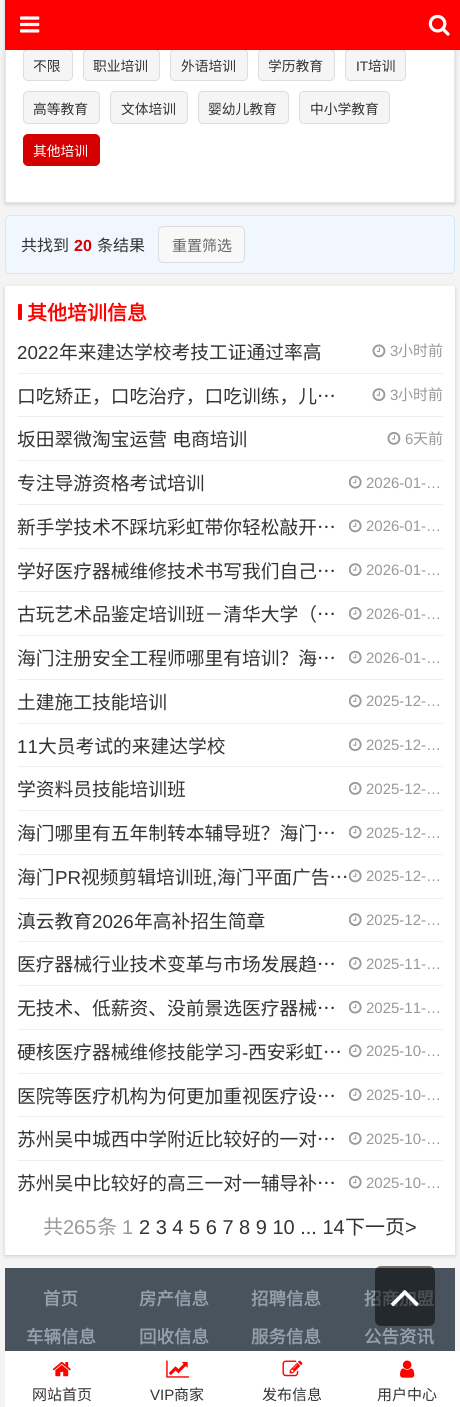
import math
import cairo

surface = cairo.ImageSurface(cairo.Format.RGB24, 460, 1407)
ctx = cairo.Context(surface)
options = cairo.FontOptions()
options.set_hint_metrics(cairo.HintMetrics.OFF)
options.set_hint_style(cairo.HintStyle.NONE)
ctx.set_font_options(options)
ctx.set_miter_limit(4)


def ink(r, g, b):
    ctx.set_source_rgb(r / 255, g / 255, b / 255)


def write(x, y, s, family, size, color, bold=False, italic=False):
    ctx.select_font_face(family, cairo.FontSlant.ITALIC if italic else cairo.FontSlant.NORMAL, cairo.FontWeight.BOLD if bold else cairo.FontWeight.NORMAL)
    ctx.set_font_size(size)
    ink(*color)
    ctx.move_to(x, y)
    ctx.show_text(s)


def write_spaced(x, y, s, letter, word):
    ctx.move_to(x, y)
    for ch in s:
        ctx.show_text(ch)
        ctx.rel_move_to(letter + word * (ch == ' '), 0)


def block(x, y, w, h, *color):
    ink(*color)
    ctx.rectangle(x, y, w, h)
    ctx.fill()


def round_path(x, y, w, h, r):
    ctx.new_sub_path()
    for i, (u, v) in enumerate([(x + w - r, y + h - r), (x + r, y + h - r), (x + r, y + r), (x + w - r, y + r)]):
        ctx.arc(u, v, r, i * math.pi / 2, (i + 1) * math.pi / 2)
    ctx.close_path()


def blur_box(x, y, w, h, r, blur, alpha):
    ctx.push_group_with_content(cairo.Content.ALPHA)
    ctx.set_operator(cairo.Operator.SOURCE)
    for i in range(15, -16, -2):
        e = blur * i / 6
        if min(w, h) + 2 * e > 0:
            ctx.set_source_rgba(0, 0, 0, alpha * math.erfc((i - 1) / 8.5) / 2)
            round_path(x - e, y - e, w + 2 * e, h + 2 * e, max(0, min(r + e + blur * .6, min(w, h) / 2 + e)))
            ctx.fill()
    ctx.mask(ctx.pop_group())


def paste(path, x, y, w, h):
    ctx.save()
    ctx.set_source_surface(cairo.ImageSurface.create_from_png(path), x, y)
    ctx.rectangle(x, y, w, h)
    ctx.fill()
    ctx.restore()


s1 = dict(family="Noto Sans CJK SC", size=13.75, color=(51, 51, 51))
s2 = dict(family="Liberation Sans", size=13.75, color=(51, 51, 51))
s3 = dict(family="Noto Sans CJK SC", size=13.75, color=(255, 255, 255))
s4 = dict(family="Noto Sans CJK SC", size=16, color=(51, 51, 51))
s5 = dict(family="Liberation Sans", size=16, color=(212, 0, 0), bold=True)
s6 = dict(family="Noto Sans CJK SC", size=15, color=(102, 102, 102))
s7 = dict(family="Noto Sans CJK SC", size=20, color=(255, 0, 0), bold=True)
s8 = dict(family="Liberation Sans", size=18.75, color=(51, 51, 51))
s9 = dict(family="Noto Sans CJK SC", size=18.75, color=(51, 51, 51))
s10 = dict(family="Liberation Sans", size=15, color=(153, 153, 153))
s11 = dict(family="Noto Sans CJK SC", size=15, color=(153, 153, 153))
s12 = dict(family="Noto Sans CJK SC", size=20, color=(153, 153, 153))
s13 = dict(family="Liberation Sans", size=20, color=(153, 153, 153))
s14 = dict(family="Liberation Sans", size=20, color=(51, 51, 51))
s15 = dict(family="Noto Sans CJK SC", size=20, color=(51, 51, 51))
s16 = dict(family="Noto Sans CJK SC", size=17.5, color=(149, 160, 172), bold=True)
s17 = dict(family="Noto Sans CJK SC", size=15, color=(51, 51, 51))
s18 = dict(family="Liberation Sans", size=15, color=(51, 51, 51))

ink(244, 244, 244)
ctx.paint()
ink(204, 204, 204)
blur_box(5, -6, 450, 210, 0, 2, 1)
block(6, 50, 448, 152, 255, 255, 255)
ctx.rectangle(5.5, -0.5, 449, 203)
ink(230, 230, 230)
ctx.set_line_width(1)
ctx.stroke()
ink(245, 245, 245)
round_path(23.5, 49.5, 49, 31, 4.5)
ctx.fill_preserve()
ink(221, 221, 221)
ctx.stroke()
ink(245, 245, 245)
round_path(83.5, 49.5, 76, 31, 4.5)
ctx.fill_preserve()
ink(221, 221, 221)
ctx.stroke()
ink(245, 245, 245)
round_path(170.5, 49.5, 77, 31, 4.5)
ctx.fill_preserve()
ink(221, 221, 221)
ctx.stroke()
ink(245, 245, 245)
round_path(258.5, 49.5, 76, 31, 4.5)
ctx.fill_preserve()
ink(221, 221, 221)
ctx.stroke()
ink(245, 245, 245)
round_path(345.5, 49.5, 60, 31, 4.5)
ctx.fill_preserve()
ink(221, 221, 221)
ctx.stroke()
block(5, 0, 455, 50, 255, 0, 0)
paste("pic1.png", 20, 16, 20, 17)
paste("pic2.png", 428, 14, 22, 22)
write(33, 71, "不限", **s1)
write(93, 71, "职业培训", **s1)
write(181, 71, "外语培训", **s1)
write(268, 71, "学历教育", **s1)
write(356, 71, "IT", **s2)
write(368, 71, "培训", **s1)
ink(245, 245, 245)
round_path(23.5, 91.5, 76, 32, 4.5)
ctx.fill_preserve()
ink(221, 221, 221)
ctx.stroke()
write(33, 114, "高等教育", **s1)
ink(245, 245, 245)
round_path(110.5, 91.5, 77, 32, 4.5)
ctx.fill_preserve()
ink(221, 221, 221)
ctx.stroke()
write(121, 114, "文体培训", **s1)
ink(245, 245, 245)
round_path(198.5, 91.5, 90, 32, 4.5)
ctx.fill_preserve()
ink(221, 221, 221)
ctx.stroke()
write(208, 114, "婴幼儿教育", **s1)
ink(245, 245, 245)
round_path(299.5, 91.5, 90, 32, 4.5)
ctx.fill_preserve()
ink(221, 221, 221)
ctx.stroke()
write(310, 114, "中小学教育", **s1)
ink(212, 0, 0)
round_path(23.5, 134.5, 76, 31, 4.5)
ctx.fill_preserve()
ctx.stroke()
write(33, 156, "其他培训", **s3)
ink(240, 247, 255)
round_path(5.5, 215.5, 449, 58, 4.5)
ctx.fill_preserve()
ink(210, 232, 252)
ctx.stroke()
write(21, 251, "共找到", **s4)
write(74, 251, "20", **s5)
write(97, 251, "条结果", **s4)
ink(248, 248, 248)
round_path(158.5, 226.5, 86, 36, 4.5)
ctx.fill_preserve()
ink(221, 221, 221)
ctx.stroke()
write(172, 251, "重置筛选", **s6)
ink(204, 204, 204)
blur_box(5, 288, 450, 968, 0, 2, 1)
block(5, 286, 450, 969, 255, 255, 255)
ink(255, 0, 0)
round_path(18, 304, 4, 16, 1)
ctx.fill()
write(27, 320, "其他培训信息", **s7)
block(18, 373, 425, 1, 238, 238, 238)
write(17, 359, "2022", **s8)
write(59, 359, "年来建达学校考技工证通过率高", **s9)
paste("pic3.png", 372, 344, 14, 14)
write(390, 356, "3", **s10)
write(398, 356, "小时前", **s11)
block(18, 416, 425, 1, 238, 238, 238)
write(17, 403, "口吃矫正，口吃治疗，口吃训练，儿…", **s9)
paste("pic4.png", 372, 388, 14, 13)
write(390, 400, "3", **s10)
write(398, 400, "小时前", **s11)
block(18, 460, 425, 1, 238, 238, 238)
ctx.set_font_size(18.75)
ink(51, 51, 51)
write_spaced(17, 446, "坂田翠微淘宝运营 电商培训", 0, 1)
paste("pic5.png", 387, 432, 14, 13)
write(405, 444, "6", **s10)
write(413, 444, "天前", **s11)
block(18, 504, 425, 1, 238, 238, 238)
write(17, 490, "专注导游资格考试培训", **s9)
paste("pic6.png", 349, 475, 13, 14)
write(366, 488, "2026-01-…", **s10)
block(18, 548, 425, 1, 238, 238, 238)
write(17, 534, "新手学技术不踩坑彩虹带你轻松敲开…", **s9)
paste("pic7.png", 349, 519, 13, 14)
write(366, 531, "2026-01-…", **s10)
block(18, 591, 425, 1, 238, 238, 238)
write(17, 578, "学好医疗器械维修技术书写我们自己…", **s9)
paste("pic8.png", 349, 563, 13, 13)
write(366, 575, "2026-01-…", **s10)
block(18, 635, 425, 1, 238, 238, 238)
write(17, 621, "古玩艺术品鉴定培训班－清华大学（…", **s9)
paste("pic9.png", 349, 607, 13, 13)
write(366, 619, "2026-01-…", **s10)
block(18, 679, 425, 1, 238, 238, 238)
write(17, 665, "海门注册安全工程师哪里有培训？海…", **s9)
paste("pic6.png", 349, 650, 13, 14)
write(366, 663, "2026-01-…", **s10)
block(18, 723, 425, 1, 238, 238, 238)
write(17, 709, "土建施工技能培训", **s9)
paste("pic7.png", 349, 694, 13, 14)
write(366, 706, "2025-12-…", **s10)
block(18, 766, 425, 1, 238, 238, 238)
write(17, 753, "11", **s8)
write(38, 753, "大员考试的来建达学校", **s9)
paste("pic8.png", 349, 738, 13, 13)
write(366, 750, "2025-12-…", **s10)
block(18, 810, 425, 1, 238, 238, 238)
write(17, 796, "学资料员技能培训班", **s9)
paste("pic9.png", 349, 782, 13, 13)
write(366, 794, "2025-12-…", **s10)
block(18, 854, 425, 1, 238, 238, 238)
write(17, 840, "海门哪里有五年制转本辅导班？海门…", **s9)
paste("pic6.png", 349, 825, 13, 14)
write(366, 838, "2025-12-…", **s10)
block(18, 898, 425, 1, 238, 238, 238)
write(17, 884, "海门", **s9)
write(55, 884, "PR", **s8)
write(81, 884, "视频剪辑培训班", **s9)
write(217, 884, "海门平面广告…", **s9)
write(212, 884, ",", **s8)
paste("pic7.png", 349, 869, 13, 14)
write(366, 881, "2025-12-…", **s10)
block(18, 941, 425, 1, 238, 238, 238)
write(17, 928, "滇云教育", **s9)
write(92, 928, "2026", **s8)
write(134, 928, "年高补招生简章", **s9)
paste("pic8.png", 349, 913, 13, 13)
write(366, 925, "2025-12-…", **s10)
block(18, 985, 425, 1, 238, 238, 238)
write(17, 971, "医疗器械行业技术变革与市场发展趋…", **s9)
paste("pic9.png", 349, 957, 13, 13)
write(366, 969, "2025-11-…", **s10)
block(18, 1029, 425, 1, 238, 238, 238)
write(17, 1015, "无技术、低薪资、没前景选医疗器械…", **s9)
paste("pic6.png", 349, 1000, 13, 14)
write(366, 1013, "2025-11-…", **s10)
block(18, 1073, 425, 1, 238, 238, 238)
write(17, 1059, "硬核医疗器械维修技能学习", **s9)
write(242, 1059, "-", **s8)
write(248, 1059, "西安彩虹…", **s9)
paste("pic7.png", 349, 1044, 13, 14)
write(366, 1056, "2025-10-…", **s10)
block(18, 1116, 425, 1, 238, 238, 238)
write(17, 1103, "医院等医疗机构为何更加重视医疗设…", **s9)
paste("pic8.png", 349, 1088, 13, 13)
write(366, 1100, "2025-10-…", **s10)
block(18, 1160, 425, 1, 238, 238, 238)
write(17, 1146, "苏州吴中城西中学附近比较好的一对…", **s9)
paste("pic9.png", 349, 1132, 13, 13)
write(366, 1144, "2025-10-…", **s10)
write(17, 1190, "苏州吴中比较好的高三一对一辅导补…", **s9)
paste("pic6.png", 349, 1175, 13, 14)
write(366, 1188, "2025-10-…", **s10)
write(43, 1234, "共", **s12)
write(63, 1234, "265", **s13)
write(97, 1234, "条", **s12)
write(122, 1234, "1", **s13)
write(139, 1234, "2 3 4 5 6 7 8 9 10 ... 14", **s14)
write(345, 1234, "下一页", **s15)
write(405, 1234, ">", **s14)
block(5, 1268, 450, 83, 73, 83, 93)
write(364, 1305, "招商加盟", **s16)
ctx.set_source_rgba(0, 0, 0, 0.5)
round_path(375, 1266, 60, 60, 6)
ctx.fill()
paste("pic10.png", 391, 1290, 28, 17)
write(43, 1305, "首页", **s16)
write(139, 1305, "房产信息", **s16)
write(251, 1305, "招聘信息", **s16)
write(26, 1343, "车辆信息", **s16)
write(139, 1343, "回收信息", **s16)
write(251, 1343, "服务信息", **s16)
write(364, 1343, "公告资讯", **s16)
block(5, 1351, 455, 56, 255, 255, 255)
paste("pic11.png", 52, 1361, 19, 16)
write(32, 1400, "网站首页", **s17)
paste("pic12.png", 166, 1360, 24, 18)
write(150, 1400, "VIP", **s18)
write(174, 1400, "商家", **s17)
paste("pic13.png", 282, 1360, 21, 17)
write(262, 1400, "发布信息", **s17)
paste("pic14.png", 400, 1360, 15, 18)
write(377, 1400, "用户中心", **s17)
surface.write_to_png("screenshot.png")
